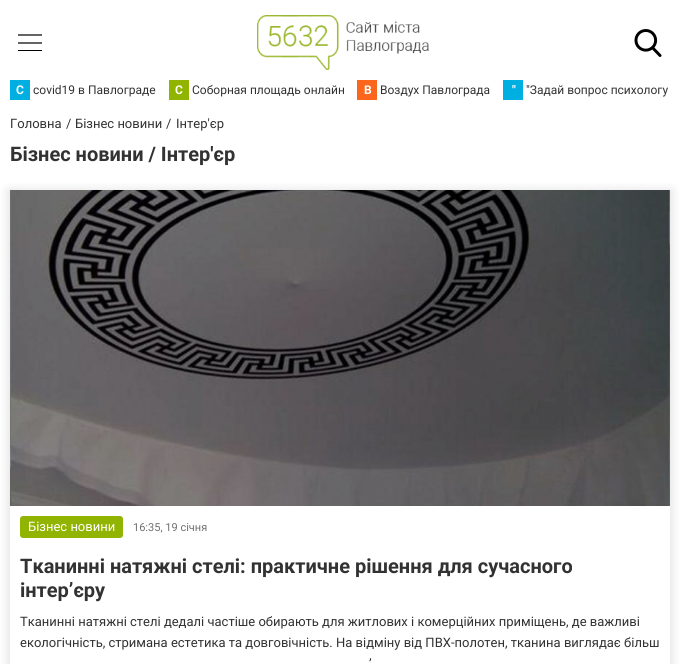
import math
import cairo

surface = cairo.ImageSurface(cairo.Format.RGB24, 680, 664)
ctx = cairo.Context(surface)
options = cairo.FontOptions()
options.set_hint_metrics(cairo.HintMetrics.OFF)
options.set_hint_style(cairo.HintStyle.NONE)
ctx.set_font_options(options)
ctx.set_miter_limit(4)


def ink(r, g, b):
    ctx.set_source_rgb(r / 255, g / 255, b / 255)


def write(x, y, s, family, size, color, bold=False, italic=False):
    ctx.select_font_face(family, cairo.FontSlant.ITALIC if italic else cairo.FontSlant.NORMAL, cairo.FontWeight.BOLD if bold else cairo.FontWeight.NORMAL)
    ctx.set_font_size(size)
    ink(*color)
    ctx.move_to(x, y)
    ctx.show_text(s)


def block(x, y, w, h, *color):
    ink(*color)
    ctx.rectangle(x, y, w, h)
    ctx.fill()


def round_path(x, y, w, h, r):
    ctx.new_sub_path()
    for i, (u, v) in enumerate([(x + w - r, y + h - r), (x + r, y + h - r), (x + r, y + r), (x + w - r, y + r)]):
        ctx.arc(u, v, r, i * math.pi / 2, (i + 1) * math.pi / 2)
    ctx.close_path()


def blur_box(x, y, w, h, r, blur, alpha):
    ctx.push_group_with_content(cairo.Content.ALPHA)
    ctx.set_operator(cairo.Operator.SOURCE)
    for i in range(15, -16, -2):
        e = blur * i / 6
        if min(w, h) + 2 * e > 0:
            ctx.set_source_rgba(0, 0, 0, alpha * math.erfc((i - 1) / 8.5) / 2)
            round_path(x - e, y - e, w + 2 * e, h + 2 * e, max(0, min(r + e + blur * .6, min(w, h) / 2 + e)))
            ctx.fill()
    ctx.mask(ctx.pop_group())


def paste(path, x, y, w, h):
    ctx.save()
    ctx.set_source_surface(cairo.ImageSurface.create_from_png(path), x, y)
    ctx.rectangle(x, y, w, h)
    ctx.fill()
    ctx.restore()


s1 = dict(family="Roboto", size=12, color=(255, 255, 255), bold=True)
s2 = dict(family="Roboto", size=12, color=(50, 50, 50))
s3 = dict(family="Roboto", size=13, color=(50, 50, 50))
s4 = dict(family="Roboto", size=20, color=(50, 50, 50), bold=True)
s5 = dict(family="Roboto", size=13, color=(255, 255, 255))
s6 = dict(family="Roboto", size=11, color=(112, 112, 112))

ink(255, 255, 255)
ctx.paint()
ctx.new_path()
ctx.move_to(18, 43)
ctx.line_to(42, 43)
ctx.move_to(18, 35)
ctx.line_to(42, 35)
ink(0, 0, 0)
ctx.set_line_width(1.2)
ctx.stroke()
block(18, 50, 24, 1, 0, 0, 0)
paste("pic1.png", 257, 15, 172, 55)
paste("pic2.png", 634, 29, 28, 28)
block(10, 80, 20, 20, 0, 175, 225)
write(16, 94, "C", **s1)
write(33, 94, "covid19 в Павлограде", **s2)
block(169, 80, 20, 20, 144, 180, 0)
write(175, 94, "С", **s1)
write(192, 94, "Соборная площадь онлайн", **s2)
block(357, 80, 20, 20, 251, 102, 28)
write(364, 94, "В", **s1)
write(380, 94, "Воздух Павлограда", **s2)
block(503, 80, 20, 20, 0, 175, 225)
write(512, 94, "\"", **s1)
write(526, 94, "\"Задай вопрос психологу", **s2)
write(10, 128, "Головна", **s3)
write(66, 128, "/", **s3)
write(75, 128, "Бізнес новини", **s3)
write(166, 128, "/", **s3)
write(176, 128, "Інтер'єр", **s3)
write(10, 161, "Бізнес новини / Інтер'єр", **s4)
ctx.save()
ctx.set_fill_rule(cairo.FillRule.EVEN_ODD)
ctx.new_path()
ctx.move_to(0, 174)
ctx.line_to(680, 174)
ctx.line_to(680, 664)
ctx.line_to(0, 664)
ctx.close_path()
ctx.move_to(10, 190)
ctx.line_to(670, 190)
ctx.line_to(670, 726)
ctx.line_to(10, 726)
ctx.close_path()
ctx.clip()
ink(50, 50, 50)
blur_box(8, 190, 664, 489, 0, 5, 0.15)
ctx.restore()
paste("pic3.png", 10, 190, 660, 316)
ink(144, 180, 0)
round_path(20, 516, 103, 22, 3)
ctx.fill()
write(28, 531, "Бізнес новини", **s5)
write(133, 531, "16:35, 19 січня", **s6)
write(20, 573, "Тканинні натяжні стелі: практичне рішення для сучасного", **s4)
write(20, 597, "інтер’єру", **s4)
write(20, 626, "Тканинні натяжні стелі дедалі частіше обирають для житлових і комерційних приміщень, де важливі", **s3)
write(20, 647, "екологічність, стримана естетика та довговічність. На відміну від ПВХ-полотен, тканина виглядає більш", **s3)
write(369, 668, "’", **s3)
surface.write_to_png("screenshot.png")
